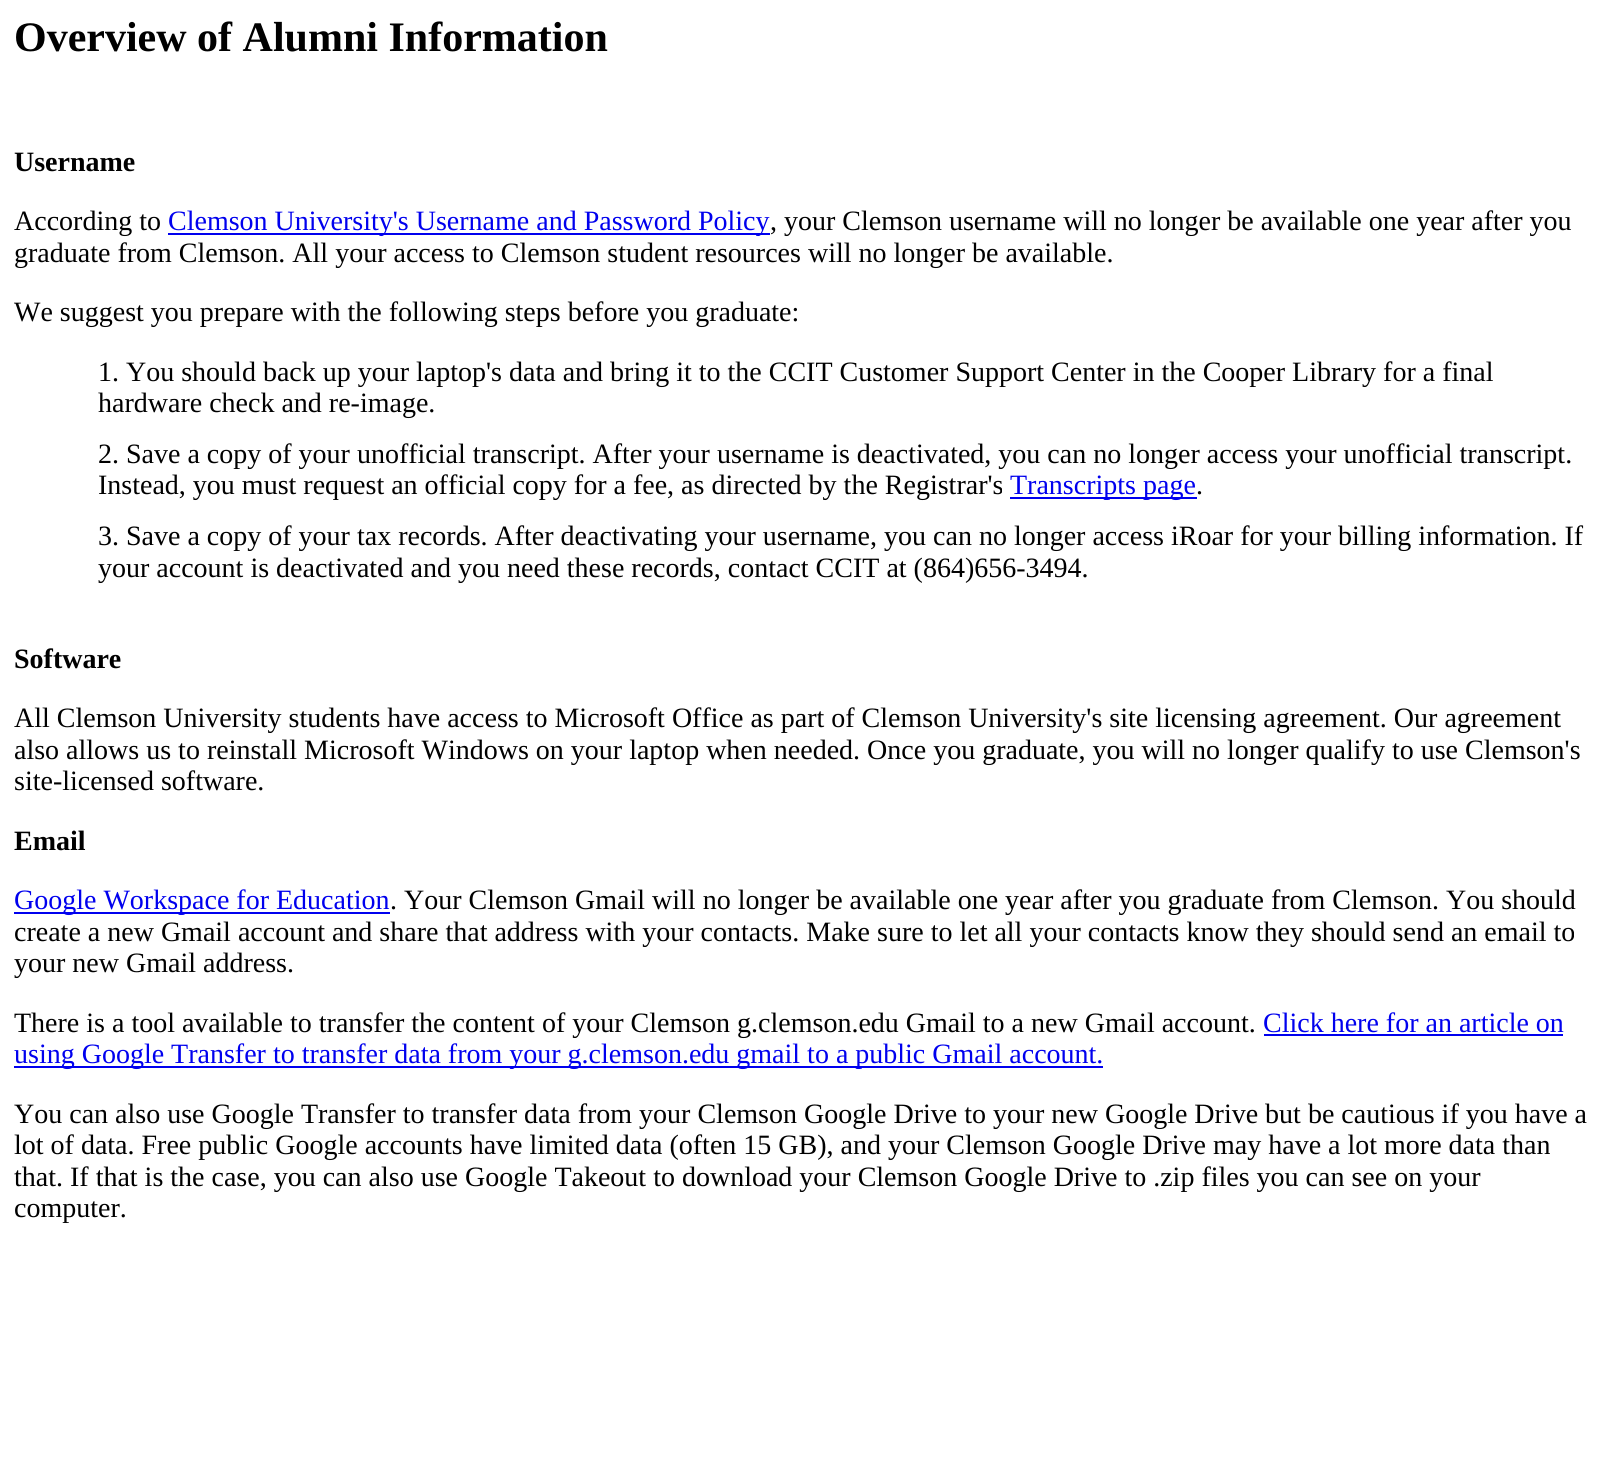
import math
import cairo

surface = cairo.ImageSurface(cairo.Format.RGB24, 1601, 1466)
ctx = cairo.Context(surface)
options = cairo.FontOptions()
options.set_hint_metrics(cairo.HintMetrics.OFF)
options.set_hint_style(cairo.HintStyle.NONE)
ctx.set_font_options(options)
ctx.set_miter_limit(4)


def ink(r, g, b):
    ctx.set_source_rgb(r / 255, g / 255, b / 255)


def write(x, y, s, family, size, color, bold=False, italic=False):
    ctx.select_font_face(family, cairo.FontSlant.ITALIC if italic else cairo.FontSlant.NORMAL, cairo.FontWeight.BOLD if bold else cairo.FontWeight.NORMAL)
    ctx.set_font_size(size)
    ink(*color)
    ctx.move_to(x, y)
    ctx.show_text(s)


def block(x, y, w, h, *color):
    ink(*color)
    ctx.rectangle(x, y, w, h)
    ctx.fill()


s1 = dict(family="Liberation Serif", size=42, color=(0, 0, 0), bold=True)
s2 = dict(family="Liberation Serif", size=28, color=(0, 0, 0), bold=True)
s3 = dict(family="Liberation Serif", size=28, color=(0, 0, 0))
s4 = dict(family="Liberation Serif", size=28, color=(0, 0, 238))

ink(255, 255, 255)
ctx.paint()
write(14, 51, "Overview of Alumni Information", **s1)
write(14, 171, "Username", **s2)
write(14, 230, "According to", **s3)
block(168, 233, 602, 2, 0, 0, 238)
write(168, 230, "Clemson University's Username and Password Policy", **s4)
write(770, 230, ", your Clemson username will no longer be available one year after you", **s3)
write(14, 262, "graduate from Clemson. All your access to Clemson student resources will no longer be available.", **s3)
write(14, 321, "We suggest you prepare with the following steps before you graduate:", **s3)
write(98, 381, "1. You should back up your laptop's data and bring it to the CCIT Customer Support Center in the Cooper Library for a final", **s3)
write(98, 412, "hardware check and re-image.", **s3)
write(98, 463, "2. Save a copy of your unofficial transcript. After your username is deactivated, you can no longer access your unofficial transcript.", **s3)
write(98, 494, "Instead, you must request an official copy for a fee, as directed by the Registrar's", **s3)
block(1010, 497, 187, 2, 0, 0, 238)
write(1010, 494, "Transcripts page", **s4)
write(1196, 494, ".", **s3)
write(98, 545, "3. Save a copy of your tax records. After deactivating your username, you can no longer access iRoar for your billing information. If", **s3)
write(98, 577, "your account is deactivated and you need these records, contact CCIT at (864)656-3494.", **s3)
write(14, 668, "Software", **s2)
write(14, 727, "All Clemson University students have access to Microsoft Office as part of Clemson University's site licensing agreement. Our agreement", **s3)
write(14, 759, "also allows us to reinstall Microsoft Windows on your laptop when needed. Once you graduate, you will no longer qualify to use Clemson's", **s3)
write(14, 790, "site-licensed software.", **s3)
write(14, 850, "Email", **s2)
block(14, 912, 376, 2, 0, 0, 238)
write(14, 909, "Google Workspace for Education", **s4)
write(390, 909, ". Your Clemson Gmail will no longer be available one year after you graduate from Clemson. You should", **s3)
write(14, 941, "create a new Gmail account and share that address with your contacts. Make sure to let all your contacts know they should send an email to", **s3)
write(14, 972, "your new Gmail address.", **s3)
write(14, 1032, "There is a tool available to transfer the content of your Clemson g.clemson.edu Gmail to a new Gmail account.", **s3)
write(1263, 1032, "Click here for an article on", **s4)
block(1264, 1034, 299, 2, 0, 0, 238)
block(14, 1066, 1089, 2, 0, 0, 238)
write(14, 1063, "using Google Transfer to transfer data from your g.clemson.edu gmail to a public Gmail account.", **s4)
write(14, 1123, "You can also use Google Transfer to transfer data from your Clemson Google Drive to your new Google Drive but be cautious if you have a", **s3)
write(14, 1154, "lot of data. Free public Google accounts have limited data (often 15 GB), and your Clemson Google Drive may have a lot more data than", **s3)
write(14, 1186, "that. If that is the case, you can also use Google Takeout to download your Clemson Google Drive to .zip files you can see on your", **s3)
write(14, 1217, "computer.", **s3)
surface.write_to_png("screenshot.png")
